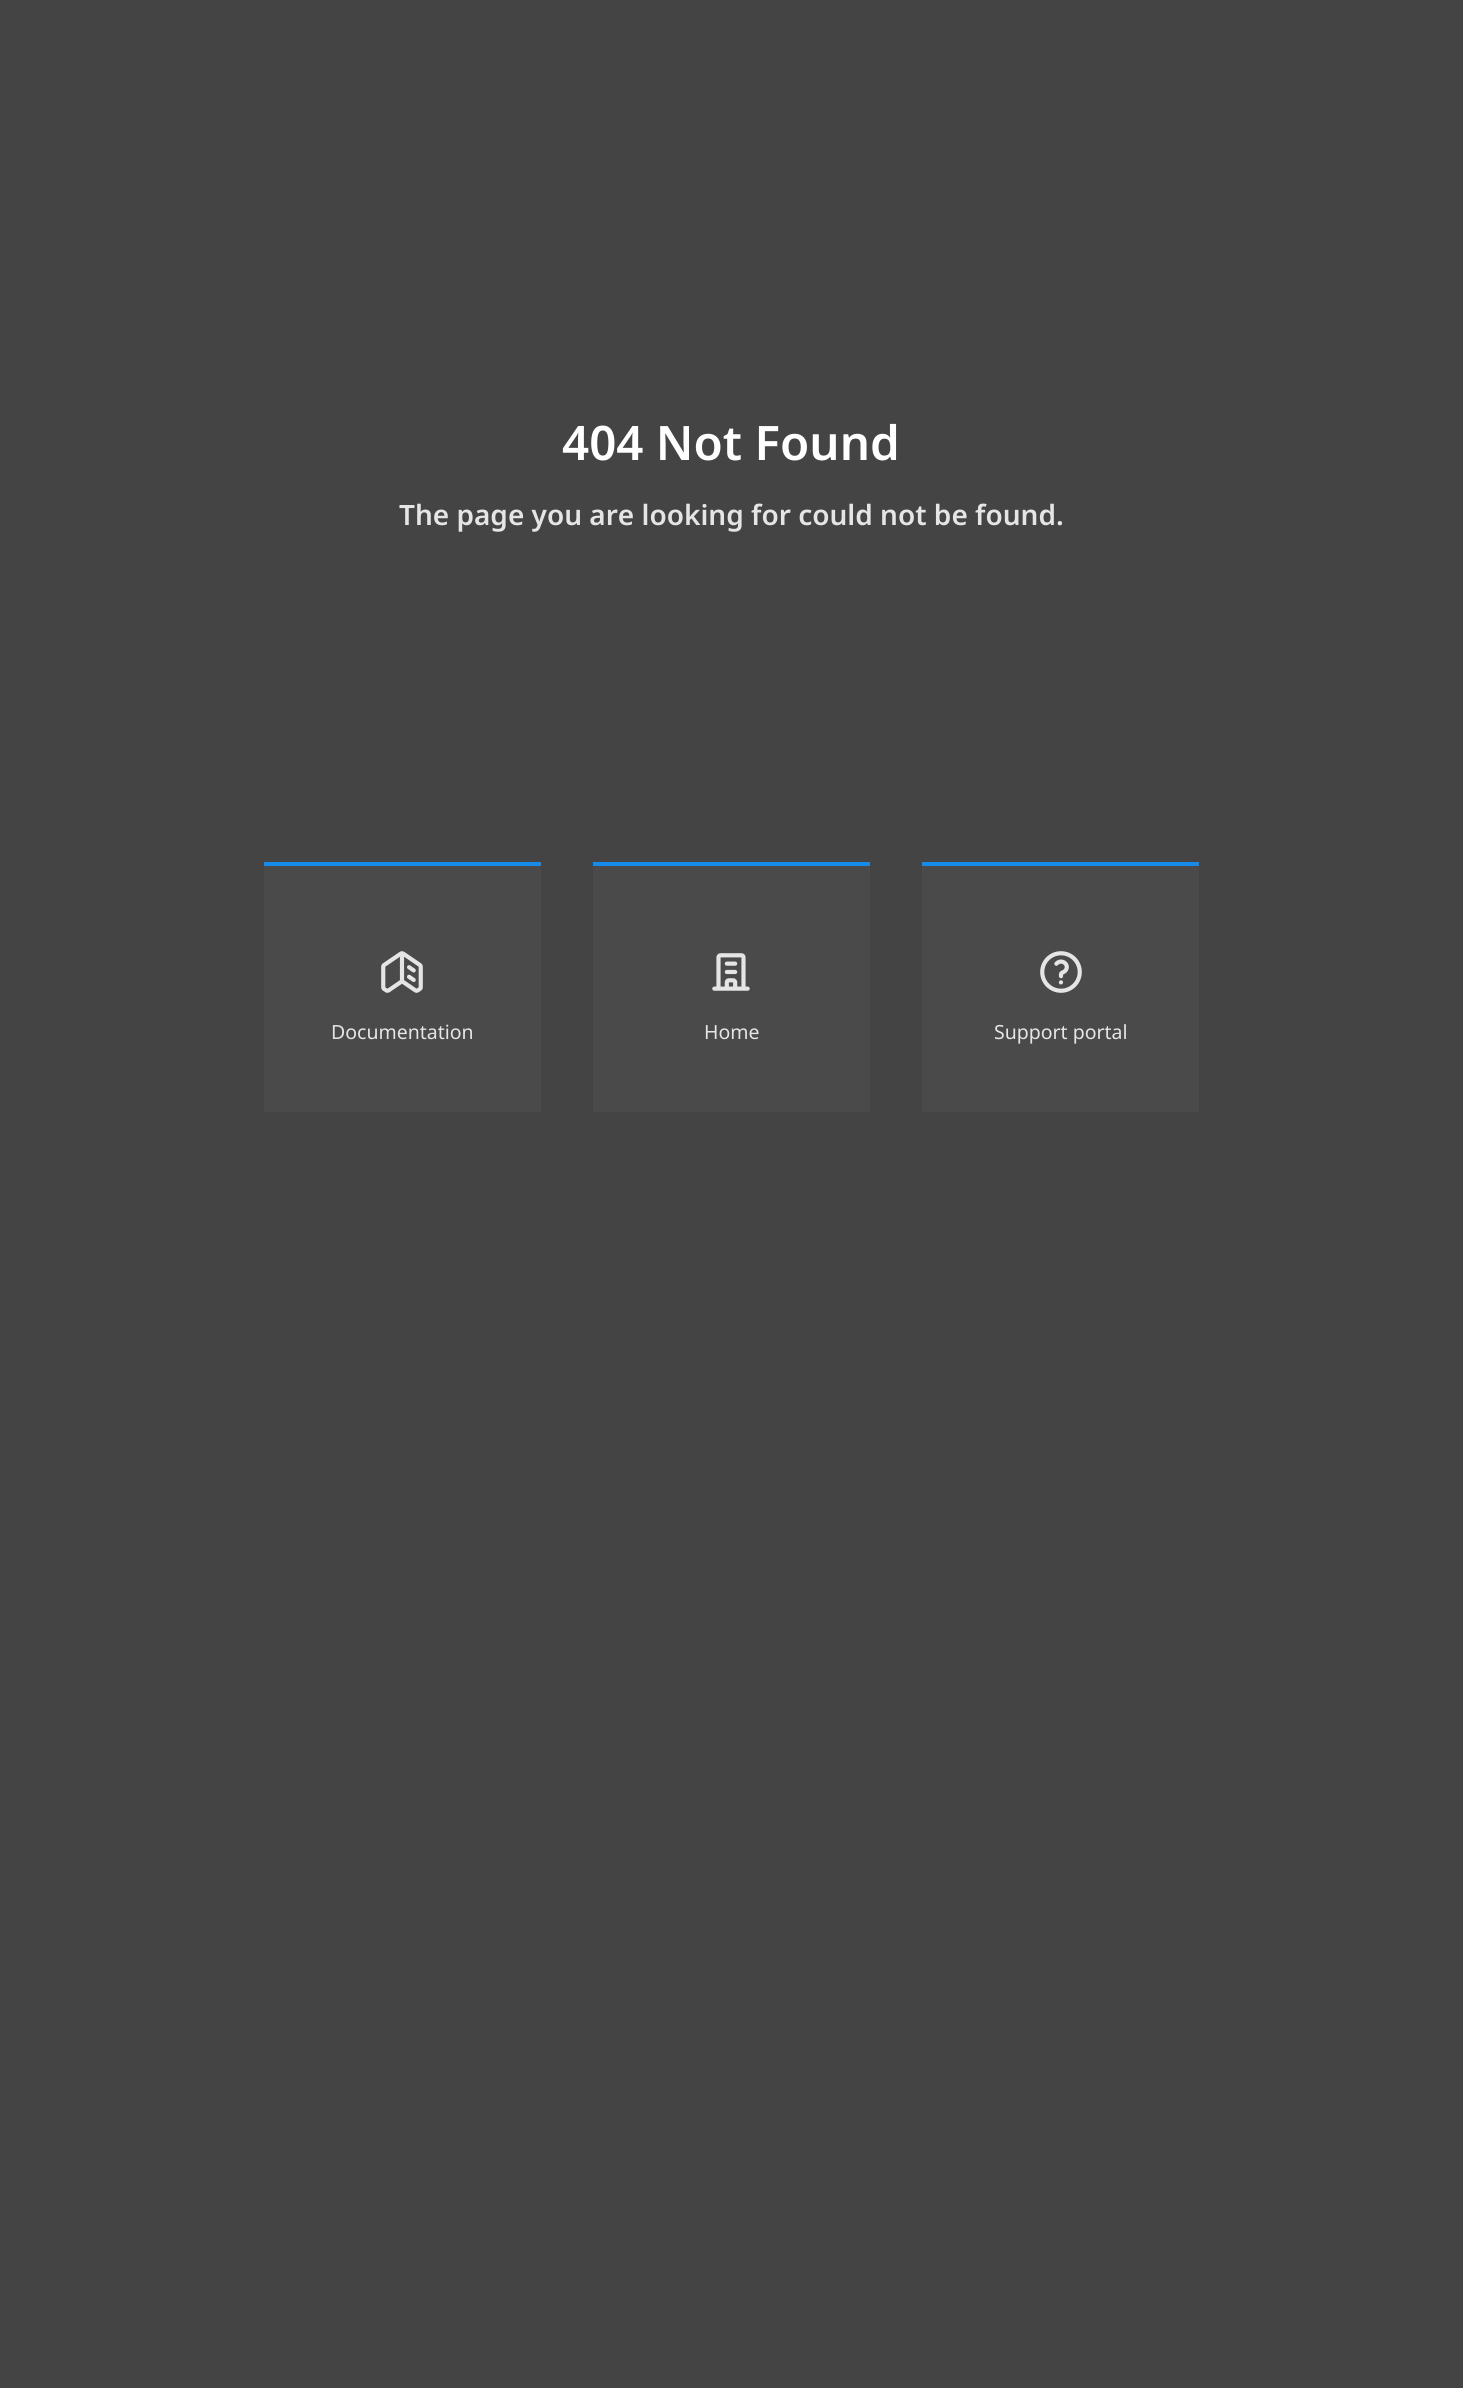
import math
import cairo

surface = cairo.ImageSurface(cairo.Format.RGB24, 1463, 2388)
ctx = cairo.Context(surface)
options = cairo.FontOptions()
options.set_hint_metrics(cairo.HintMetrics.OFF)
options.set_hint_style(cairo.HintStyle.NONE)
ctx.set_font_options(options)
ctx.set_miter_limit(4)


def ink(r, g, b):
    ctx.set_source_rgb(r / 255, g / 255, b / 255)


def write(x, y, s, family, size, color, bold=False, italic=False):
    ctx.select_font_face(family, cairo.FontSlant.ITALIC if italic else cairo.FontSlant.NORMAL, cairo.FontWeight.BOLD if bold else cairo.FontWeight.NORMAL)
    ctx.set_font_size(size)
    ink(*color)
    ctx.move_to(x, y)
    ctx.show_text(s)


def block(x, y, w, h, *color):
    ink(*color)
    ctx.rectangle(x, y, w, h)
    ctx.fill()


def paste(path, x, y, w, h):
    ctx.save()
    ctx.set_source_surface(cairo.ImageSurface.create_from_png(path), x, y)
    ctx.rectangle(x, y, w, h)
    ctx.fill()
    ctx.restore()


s1 = dict(family="Noto Sans SemiBold", size=47.5, color=(255, 255, 255))
s2 = dict(family="Noto Sans SemiBold", size=28, color=(229, 229, 229))
s3 = dict(family="Noto Sans", size=19.5, color=(229, 229, 229))

ink(68, 68, 68)
ctx.paint()
write(562, 460, "404 Not Found", **s1)
write(399, 525, "The page you are looking for could not be found.", **s2)
block(264, 866, 277, 246, 74, 74, 74)
block(264, 862, 277, 4, 23, 139, 234)
paste("pic1.png", 381, 951, 42, 42)
write(331, 1039, "Documentation", **s3)
block(593, 866, 277, 246, 74, 74, 74)
block(593, 862, 277, 4, 23, 139, 234)
paste("pic2.png", 712, 953, 38, 38)
write(704, 1039, "Home", **s3)
block(922, 866, 277, 246, 74, 74, 74)
block(922, 862, 277, 4, 23, 139, 234)
paste("pic3.png", 1040, 951, 42, 42)
write(994, 1039, "Support portal", **s3)
surface.write_to_png("screenshot.png")
